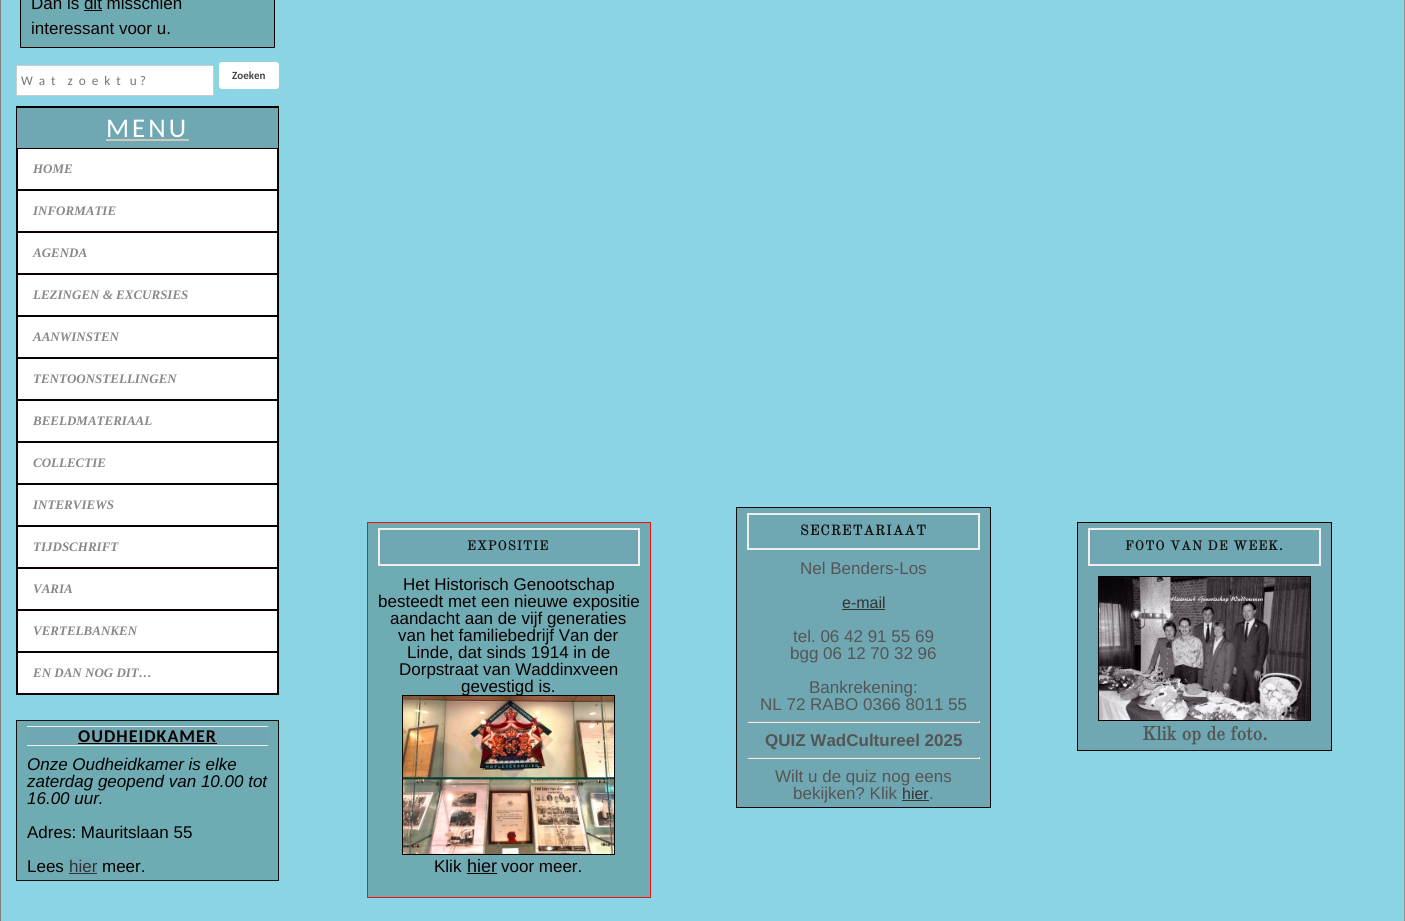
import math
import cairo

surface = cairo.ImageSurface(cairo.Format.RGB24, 1405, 921)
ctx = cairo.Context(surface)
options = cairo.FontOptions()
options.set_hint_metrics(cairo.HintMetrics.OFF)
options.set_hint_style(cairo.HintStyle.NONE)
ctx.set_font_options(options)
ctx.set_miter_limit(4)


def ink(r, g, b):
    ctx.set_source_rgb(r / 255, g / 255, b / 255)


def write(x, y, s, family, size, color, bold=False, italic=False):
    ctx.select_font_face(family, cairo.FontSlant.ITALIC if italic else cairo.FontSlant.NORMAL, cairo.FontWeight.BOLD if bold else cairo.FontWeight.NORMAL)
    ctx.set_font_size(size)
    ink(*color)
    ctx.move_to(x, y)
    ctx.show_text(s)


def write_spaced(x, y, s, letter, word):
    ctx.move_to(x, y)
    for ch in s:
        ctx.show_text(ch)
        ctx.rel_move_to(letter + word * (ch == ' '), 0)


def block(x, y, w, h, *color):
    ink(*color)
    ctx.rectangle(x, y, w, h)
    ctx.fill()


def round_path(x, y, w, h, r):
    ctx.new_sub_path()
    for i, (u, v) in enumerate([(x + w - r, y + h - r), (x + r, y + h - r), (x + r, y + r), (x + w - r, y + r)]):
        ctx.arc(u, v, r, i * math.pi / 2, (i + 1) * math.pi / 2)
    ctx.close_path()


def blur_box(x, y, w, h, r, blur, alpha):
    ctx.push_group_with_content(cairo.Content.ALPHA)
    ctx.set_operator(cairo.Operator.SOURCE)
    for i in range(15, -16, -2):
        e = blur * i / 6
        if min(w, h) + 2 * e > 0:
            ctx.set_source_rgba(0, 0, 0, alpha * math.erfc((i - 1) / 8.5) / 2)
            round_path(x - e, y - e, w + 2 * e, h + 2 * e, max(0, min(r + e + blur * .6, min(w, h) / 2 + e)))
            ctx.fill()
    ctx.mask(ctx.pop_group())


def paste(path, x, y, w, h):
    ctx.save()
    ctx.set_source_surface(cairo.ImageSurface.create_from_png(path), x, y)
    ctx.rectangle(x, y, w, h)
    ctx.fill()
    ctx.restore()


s1 = dict(family="Liberation Sans", size=17, color=(14, 1, 1))
s2 = dict(family="Carlito", size=13.25, color=(117, 117, 117))
s3 = dict(family="Carlito", size=11, color=(68, 68, 68), bold=True)
s4 = dict(family="Liberation Serif", size=13, color=(136, 136, 136), bold=True, italic=True)
s5 = dict(family="Liberation Sans", size=17, color=(0, 0, 0), italic=True)
s6 = dict(family="Liberation Sans", size=17, color=(0, 0, 0))
s7 = dict(family="Liberation Sans", size=17, color=(51, 51, 51))
s8 = dict(family="Liberation Sans", size=17, color=(8, 0, 0))
s9 = dict(family="Liberation Sans", size=18, color=(8, 0, 0))
s10 = dict(family="Liberation Sans", size=17, color=(85, 85, 85))
s11 = dict(family="Liberation Sans", size=16, color=(51, 51, 51))
s12 = dict(family="Liberation Sans", size=17, color=(85, 85, 85), bold=True)
s13 = dict(family="Old Standard TT", size=19, color=(85, 85, 85), bold=True)

ink(255, 255, 255)
ctx.paint()
ctx.rectangle(0.5, -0.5, 1404, 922)
ink(85, 85, 85)
ctx.set_line_width(1)
ctx.stroke()
ink(199, 199, 199)
blur_box(2, -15, 1403, 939, 3, 4, 1)
block(1, 0, 1403, 921, 138, 212, 227)
ink(111, 171, 179)
round_path(20.5, -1.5, 254, 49, 0.5)
ctx.fill_preserve()
ink(8, 0, 0)
ctx.stroke()
write(31, 9, "Dan is dit misschien", **s1)
block(84, 10, 18, 1, 14, 1, 1)
write(31, 34, "interessant voor u.", **s1)
ink(255, 255, 255)
round_path(16.5, 65.5, 197, 30, 1.5)
ctx.fill_preserve()
ink(204, 204, 204)
ctx.stroke()
write(21, 85, "W  a  t    z  o  e  k  t   u ?", **s2)
ink(255, 255, 255)
round_path(219, 62, 60, 27, 3)
ctx.fill()
write(232, 79, "Zoeken", **s3)
block(16, 106, 263, 2, 0, 0, 0)
block(278, 106, 1, 589, 0, 0, 0)
block(16, 694, 263, 1, 0, 0, 0)
block(16, 106, 1, 589, 0, 0, 0)
block(17, 108, 261, 40, 111, 168, 179)
ctx.select_font_face("Carlito")
ctx.set_font_size(27)
ink(255, 255, 255)
write_spaced(106, 137, "MENU", 3, 0)
block(106, 139, 83, 2, 207, 199, 188)
block(18, 149, 259, 40, 255, 255, 255)
block(17, 148, 261, 1, 9, 1, 1)
block(277, 148, 1, 42, 14, 1, 1)
block(17, 189, 261, 1, 14, 1, 1)
block(17, 148, 1, 42, 9, 1, 1)
write(33, 173, "HOME", **s4)
block(18, 191, 259, 40, 255, 255, 255)
block(17, 190, 261, 1, 9, 1, 1)
block(277, 190, 1, 42, 14, 1, 1)
block(17, 231, 261, 1, 14, 1, 1)
block(17, 190, 1, 42, 9, 1, 1)
write(33, 215, "INFORMATIE", **s4)
block(18, 233, 259, 40, 255, 255, 255)
block(17, 232, 261, 1, 9, 1, 1)
block(277, 232, 1, 42, 14, 1, 1)
block(17, 273, 261, 1, 14, 1, 1)
block(17, 232, 1, 42, 9, 1, 1)
write(33, 257, "AGENDA", **s4)
block(18, 275, 259, 40, 255, 255, 255)
block(17, 274, 261, 1, 9, 1, 1)
block(277, 274, 1, 42, 14, 1, 1)
block(17, 315, 261, 1, 14, 1, 1)
block(17, 274, 1, 42, 9, 1, 1)
write(33, 299, "LEZINGEN & EXCURSIES", **s4)
block(18, 317, 259, 40, 255, 255, 255)
block(17, 316, 261, 1, 9, 1, 1)
block(277, 316, 1, 42, 14, 1, 1)
block(17, 357, 261, 1, 14, 1, 1)
block(17, 316, 1, 42, 9, 1, 1)
write(33, 341, "AANWINSTEN", **s4)
block(18, 359, 259, 40, 255, 255, 255)
block(17, 358, 261, 1, 9, 1, 1)
block(277, 358, 1, 42, 14, 1, 1)
block(17, 399, 261, 1, 14, 1, 1)
block(17, 358, 1, 42, 9, 1, 1)
write(33, 383, "TENTOONSTELLINGEN", **s4)
block(18, 401, 259, 40, 255, 255, 255)
block(17, 400, 261, 1, 9, 1, 1)
block(277, 400, 1, 42, 14, 1, 1)
block(17, 441, 261, 1, 14, 1, 1)
block(17, 400, 1, 42, 9, 1, 1)
write(33, 425, "BEELDMATERIAAL", **s4)
block(18, 443, 259, 40, 255, 255, 255)
block(17, 442, 261, 1, 9, 1, 1)
block(277, 442, 1, 42, 14, 1, 1)
block(17, 483, 261, 1, 14, 1, 1)
block(17, 442, 1, 42, 9, 1, 1)
write(33, 467, "COLLECTIE", **s4)
block(18, 485, 259, 40, 255, 255, 255)
block(17, 484, 261, 1, 9, 1, 1)
block(277, 484, 1, 42, 14, 1, 1)
block(17, 525, 261, 1, 14, 1, 1)
block(17, 484, 1, 42, 9, 1, 1)
write(33, 509, "INTERVIEWS", **s4)
block(18, 527, 259, 40, 255, 255, 255)
block(17, 526, 261, 1, 9, 1, 1)
block(277, 526, 1, 42, 14, 1, 1)
block(17, 567, 261, 1, 14, 1, 1)
block(17, 526, 1, 42, 9, 1, 1)
write(33, 551, "TIJDSCHRIFT", **s4)
block(18, 569, 259, 40, 255, 255, 255)
block(17, 568, 261, 1, 9, 1, 1)
block(277, 568, 1, 42, 14, 1, 1)
block(17, 609, 261, 1, 14, 1, 1)
block(17, 568, 1, 42, 9, 1, 1)
write(33, 593, "VARIA", **s4)
block(18, 611, 259, 40, 255, 255, 255)
block(17, 610, 261, 1, 9, 1, 1)
block(277, 610, 1, 42, 14, 1, 1)
block(17, 651, 261, 1, 14, 1, 1)
block(17, 610, 1, 42, 9, 1, 1)
write(33, 635, "VERTELBANKEN", **s4)
block(18, 653, 259, 40, 255, 255, 255)
block(17, 652, 261, 1, 9, 1, 1)
block(277, 652, 1, 42, 14, 1, 1)
block(17, 693, 261, 1, 14, 1, 1)
block(17, 652, 1, 42, 9, 1, 1)
write(33, 677, "EN DAN NOG DIT…", **s4)
ink(111, 171, 179)
ctx.rectangle(16.5, 720.5, 262, 160)
ctx.fill_preserve()
ink(18, 15, 15)
ctx.stroke()
block(27, 727, 241, 18, 111, 168, 179)
block(27, 726, 241, 1, 238, 238, 238)
block(27, 745, 241, 1, 238, 238, 238)
ctx.select_font_face("Carlito", cairo.FontSlant.NORMAL, cairo.FontWeight.BOLD)
ctx.set_font_size(18)
ink(14, 1, 1)
write_spaced(78, 742, "OUDHEIDKAMER", 1, 0)
block(78, 743, 139, 1, 14, 1, 1)
write(27, 770, "Onze Oudheidkamer is elke", **s5)
write(27, 787, "zaterdag geopend van 10.00 tot", **s5)
write(27, 804, "16.00 uur.", **s5)
write(27, 838, "Adres: Mauritslaan 55", **s6)
write(27, 872, "Lees", **s6)
block(69, 857, 28, 19, 111, 168, 179)
write(69, 872, "hier", **s7)
block(69, 873, 28, 1, 51, 51, 51)
write(102, 872, "meer.", **s6)
ink(111, 171, 179)
ctx.rectangle(367.5, 522.5, 283, 375)
ctx.fill_preserve()
ink(240, 17, 17)
ctx.stroke()
ink(111, 168, 179)
ctx.rectangle(379, 529, 260, 36)
ctx.fill_preserve()
ink(238, 238, 238)
ctx.set_line_width(2)
ctx.stroke()
ctx.select_font_face("Old Standard TT", cairo.FontSlant.NORMAL, cairo.FontWeight.BOLD)
ctx.set_font_size(13)
ink(17, 17, 17)
write_spaced(467, 550, "EXPOSITIE", 1, 0)
write(403, 590, "Het Historisch Genootschap", **s8)
write(378, 607, "besteedt met een nieuwe expositie", **s8)
write(390, 624, "aandacht aan de vijf generaties", **s8)
write(398, 641, "van het familiebedrijf Van der", **s8)
write(407, 658, "Linde, dat sinds 1914 in de", **s8)
write(399, 675, "Dorpstraat van Waddinxveen", **s8)
write(461, 692, "gevestigd is.", **s8)
ctx.rectangle(402.5, 695.5, 212, 159)
ink(0, 0, 0)
ctx.set_line_width(1)
ctx.stroke()
paste("pic1.png", 403, 696, 211, 158)
write(434, 872, "Klik", **s8)
block(467, 856, 30, 20, 111, 168, 179)
write(467, 872, "hier", **s9)
block(467, 873, 30, 1, 8, 0, 0)
write(501, 872, "voor meer.", **s8)
block(737, 508, 253, 299, 111, 168, 179)
block(736, 507, 255, 1, 18, 15, 15)
block(990, 507, 1, 301, 12, 10, 10)
block(736, 807, 255, 1, 12, 10, 10)
block(736, 507, 1, 301, 18, 15, 15)
ctx.rectangle(748, 514, 231, 35)
ink(238, 238, 238)
ctx.set_line_width(2)
ctx.stroke()
ctx.select_font_face("Old Standard TT", cairo.FontSlant.NORMAL, cairo.FontWeight.BOLD)
ctx.set_font_size(14)
ink(17, 17, 17)
write_spaced(800, 535, "SECRETARIAAT", 1, 0)
write(800, 574, "Nel Benders-Los", **s10)
write(842, 608, "e-mail", **s11)
block(842, 609, 43, 1, 51, 51, 51)
write(793, 642, "tel. 06 42 91 55 69", **s10)
write(790, 659, "bgg 06 12 70 32 96", **s10)
write(809, 693, "Bankrekening:", **s10)
write(760, 710, "NL 72 RABO 0366 8011 55", **s10)
block(747, 721, 233, 1, 159, 159, 159)
block(979, 721, 1, 2, 238, 238, 238)
block(747, 722, 233, 1, 238, 238, 238)
block(747, 721, 1, 2, 159, 159, 159)
write(765, 746, "QUIZ WadCultureel 2025", **s12)
block(747, 757, 233, 1, 159, 159, 159)
block(979, 757, 1, 2, 238, 238, 238)
block(747, 758, 233, 1, 238, 238, 238)
block(747, 757, 1, 2, 159, 159, 159)
write(775, 782, "Wilt u de quiz nog eens", **s10)
write(793, 799, "bekijken? Klik", **s10)
write(902, 799, "hier", **s11)
block(902, 800, 27, 1, 51, 51, 51)
write(929, 799, ".", **s10)
ink(111, 168, 179)
ctx.rectangle(1077.5, 522.5, 254, 228)
ctx.fill_preserve()
ink(0, 0, 0)
ctx.set_line_width(1)
ctx.stroke()
ctx.rectangle(1089, 529, 231, 36)
ink(238, 238, 238)
ctx.set_line_width(2)
ctx.stroke()
ctx.select_font_face("Old Standard TT", cairo.FontSlant.NORMAL, cairo.FontWeight.BOLD)
ctx.set_font_size(13)
ink(17, 17, 17)
write_spaced(1125, 550, "FOTO VAN DE WEEK.", 1, 0)
ctx.rectangle(1098.5, 576.5, 212, 144)
ink(0, 0, 0)
ctx.set_line_width(1)
ctx.stroke()
paste("pic2.png", 1099, 577, 211, 143)
write(1142, 740, "Klik op de foto.", **s13)
surface.write_to_png("screenshot.png")
